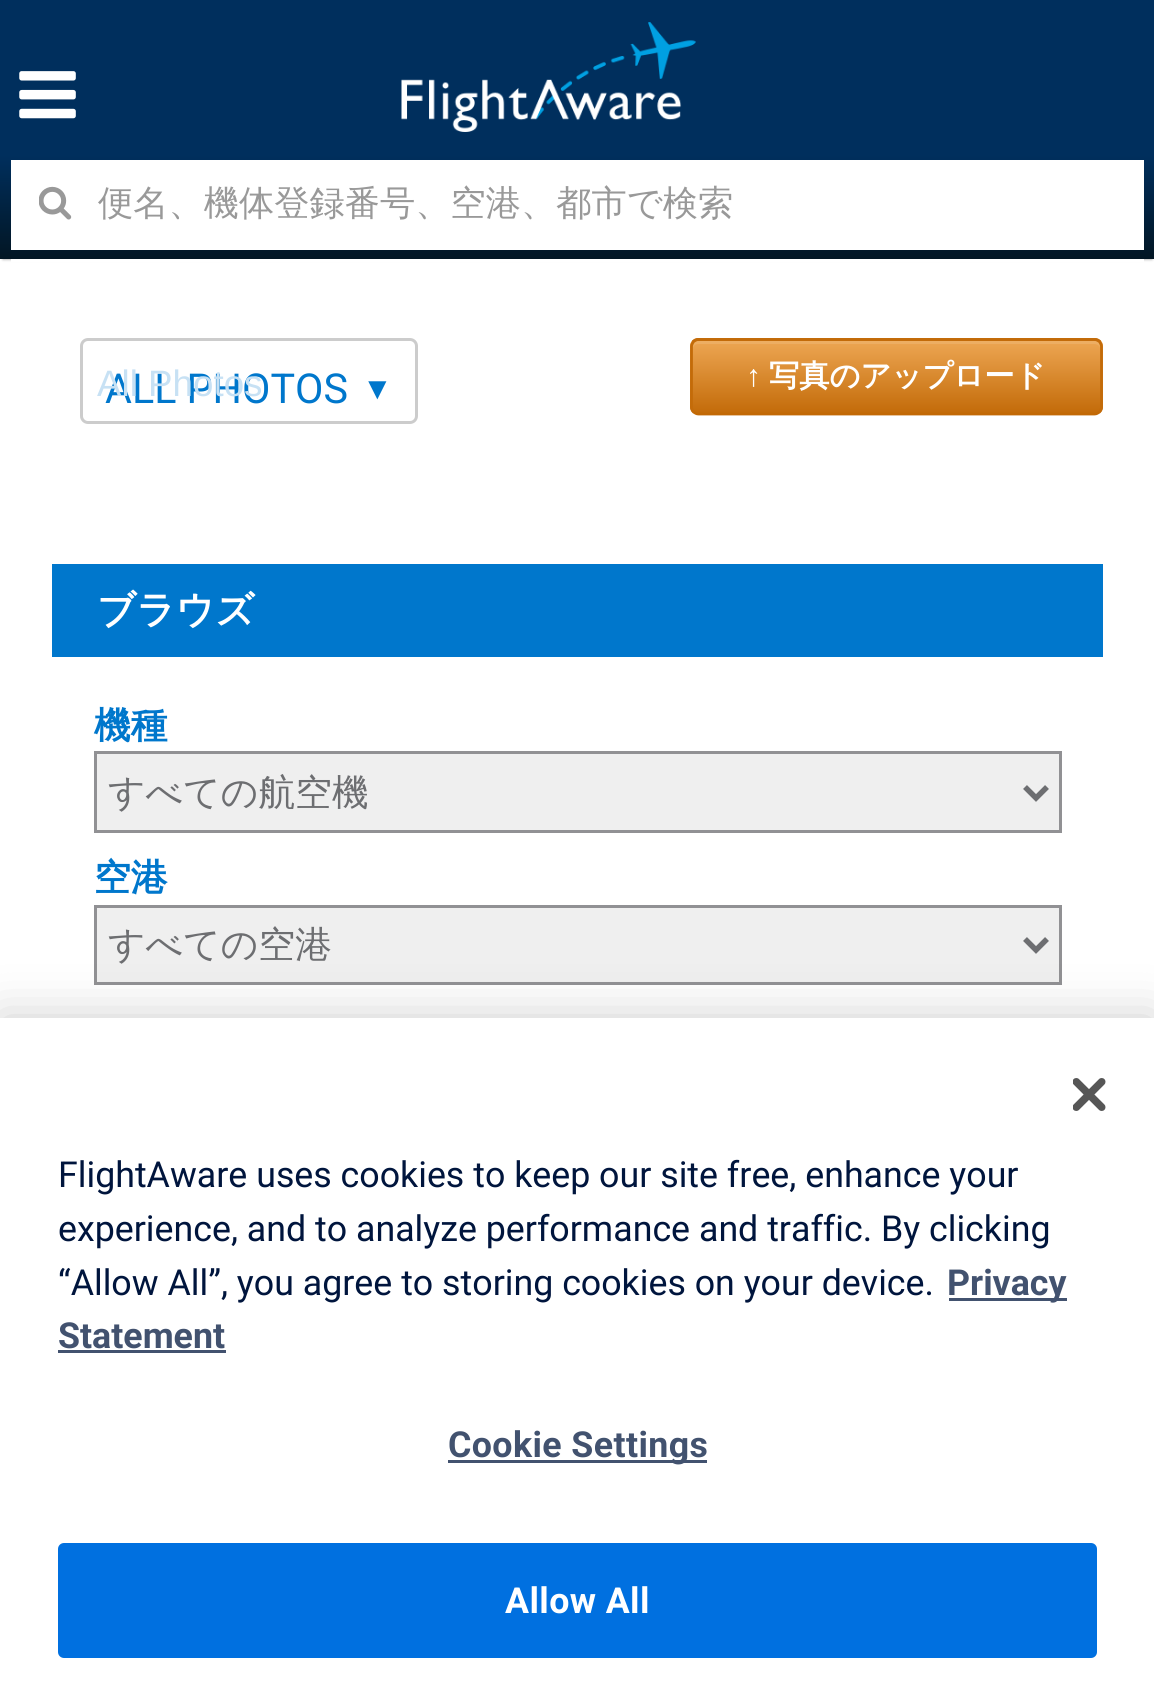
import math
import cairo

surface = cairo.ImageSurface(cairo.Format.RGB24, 1154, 1700)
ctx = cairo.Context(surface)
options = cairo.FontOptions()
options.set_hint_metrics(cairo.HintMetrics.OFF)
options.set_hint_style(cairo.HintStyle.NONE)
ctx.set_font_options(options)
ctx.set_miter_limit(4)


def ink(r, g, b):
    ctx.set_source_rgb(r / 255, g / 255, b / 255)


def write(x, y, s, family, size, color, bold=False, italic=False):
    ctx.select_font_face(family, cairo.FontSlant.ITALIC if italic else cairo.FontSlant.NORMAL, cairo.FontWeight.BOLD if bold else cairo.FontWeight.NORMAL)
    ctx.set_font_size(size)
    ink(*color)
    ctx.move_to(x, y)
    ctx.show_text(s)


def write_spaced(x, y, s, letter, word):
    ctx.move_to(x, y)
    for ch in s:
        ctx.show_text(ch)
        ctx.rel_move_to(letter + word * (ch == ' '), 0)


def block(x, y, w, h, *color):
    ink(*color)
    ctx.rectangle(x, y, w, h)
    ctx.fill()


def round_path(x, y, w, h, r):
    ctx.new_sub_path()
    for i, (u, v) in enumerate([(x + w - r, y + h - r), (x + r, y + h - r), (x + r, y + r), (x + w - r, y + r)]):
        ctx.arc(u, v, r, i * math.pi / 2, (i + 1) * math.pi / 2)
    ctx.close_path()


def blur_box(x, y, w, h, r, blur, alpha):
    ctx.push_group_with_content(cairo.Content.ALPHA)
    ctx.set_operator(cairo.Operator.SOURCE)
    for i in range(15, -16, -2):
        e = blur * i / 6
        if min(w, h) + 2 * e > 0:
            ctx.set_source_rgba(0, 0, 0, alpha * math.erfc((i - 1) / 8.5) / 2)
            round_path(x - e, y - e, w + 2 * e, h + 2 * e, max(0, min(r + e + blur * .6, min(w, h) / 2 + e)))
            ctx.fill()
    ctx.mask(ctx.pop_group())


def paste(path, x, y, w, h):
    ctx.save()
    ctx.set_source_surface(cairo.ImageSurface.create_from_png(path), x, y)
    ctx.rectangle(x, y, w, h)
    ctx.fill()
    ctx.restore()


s1 = dict(family="WenQuanYi Zen Hei Medium", size=35.25, color=(153, 153, 153))
s2 = dict(family="Roboto", size=41.25, color=(0, 119, 204))
s3 = dict(family="Liberation Sans", size=36.75, color=(199, 225, 244))
s4 = dict(family="Liberation Sans", size=31, color=(0, 119, 204))
s5 = dict(family="Liberation Sans", size=30.25, color=(255, 255, 255), bold=True)
s6 = dict(family="WenQuanYi Zen Hei", size=30.25, color=(255, 255, 255), bold=True)
s7 = dict(family="WenQuanYi Zen Hei", size=38.5, color=(255, 255, 255), bold=True)
s8 = dict(family="WenQuanYi Zen Hei", size=36.75, color=(0, 119, 204), bold=True)
s9 = dict(family="WenQuanYi Zen Hei Medium", size=36.75, color=(109, 110, 113))
s10 = dict(family="Roboto", size=35.75, color=(0, 21, 61))
s11 = dict(family="Roboto", size=35.75, color=(66, 82, 111), bold=True)

ink(255, 255, 255)
ctx.paint()
ink(136, 136, 136)
blur_box(3, 6, 1149, 253, 0, 1.5, 1)
gradient = cairo.LinearGradient(578, 0, 578, 259)
gradient.add_color_stop_rgba(0, 0, 0.184, 0.365, 1)
gradient.add_color_stop_rgba(0.6, 0, 0.184, 0.365, 1)
gradient.add_color_stop_rgba(1, 0.008, 0.086, 0.141, 1)
ctx.set_source(gradient)
ctx.rectangle(0, 0, 1154, 259)
ctx.fill()
paste("pic1.png", 19, 71, 57, 48)
paste("pic2.png", 401, 22, 295, 110)
block(11, 160, 1133, 90, 255, 255, 255)
paste("pic3.png", 39, 186, 33, 34)
write(98, 215, "便名、機体登録番号、空港、都市で検索", **s1)
block(11, 259, 1133, 3, 255, 255, 255)
round_path(81.5, 339.5, 335, 83, 6.5)
ink(204, 204, 204)
ctx.set_line_width(3)
ctx.stroke()
write(105, 403, "ALL PHOTOS", **s2)
write(97, 396, "All Photos", **s3)
write(362, 399, "▼", **s4)
ctx.save()
round_path(690, 338, 413, 77, 8)
ctx.clip()
gradient = cairo.LinearGradient(693, 270, 693, 341)
gradient.add_color_stop_rgba(0, 0.929, 0.651, 0.325, 1)
gradient.add_color_stop_rgba(1, 0.765, 0.42, 0.035, 1)
ctx.set_source(gradient)
ctx.rectangle(690, 338, 413, 3)
ctx.fill()
gradient = cairo.LinearGradient(693, 341, 693, 413)
gradient.add_color_stop_rgba(0, 0.929, 0.651, 0.325, 1)
gradient.add_color_stop_rgba(1, 0.765, 0.42, 0.035, 1)
ctx.set_source(gradient)
ctx.rectangle(690, 341, 413, 72)
ctx.fill()
ctx.restore()
ink(237, 174, 99)
ctx.new_path()
ctx.move_to(698, 344)
ctx.line_to(1094, 344)
ctx.curve_to(1098, 344, 1100, 346, 1100, 349)
ctx.curve_to(1100, 345, 1099, 341, 1094, 341)
ctx.line_to(699, 341)
ctx.curve_to(694, 341, 693, 345, 693, 349)
ctx.curve_to(693, 346, 695, 344, 698, 344)
ctx.close_path()
ctx.fill()
ctx.new_path()
ctx.move_to(1099.5, 412)
ctx.curve_to(1098, 413, 1096.5, 414, 1094.5, 414)
ctx.line_to(698.5, 414)
ctx.curve_to(696.5, 414, 695, 413, 693.5, 412)
ink(194, 105, 5)
ctx.set_line_width(2.8)
ctx.stroke()
ctx.new_path()
ctx.move_to(693.5, 412)
ctx.curve_to(692.5, 410.5, 691.5, 409, 691.5, 407)
ctx.line_to(691.5, 346.5)
ctx.curve_to(691.5, 344.5, 692.5, 343, 693.5, 341.5)
ctx.curve_to(695, 340.5, 696.5, 339.5, 698.5, 339.5)
ctx.line_to(1094.5, 339.5)
ctx.curve_to(1096.5, 339.5, 1098, 340.5, 1099.5, 341.5)
ctx.curve_to(1100.5, 343, 1101.5, 344.5, 1101.5, 346.5)
ctx.line_to(1101.5, 407)
ctx.curve_to(1101.5, 409, 1100.5, 410.5, 1099.5, 412)
ink(195, 107, 9)
ctx.stroke()
write(746, 386, "↑", **s5)
write(769, 386, "写真のアップロード", **s6)
block(52, 564, 1051, 93, 0, 119, 204)
write(97, 623, "ブラウズ", **s7)
write(94, 738, "機種", **s8)
ink(239, 239, 239)
ctx.rectangle(95.5, 752.5, 965, 79)
ctx.fill_preserve()
ink(145, 145, 148)
ctx.set_line_width(3)
ctx.stroke()
ctx.new_path()
ctx.move_to(1025, 787)
ctx.line_to(1036, 798)
ctx.line_to(1047, 787)
ink(109, 110, 113)
ctx.set_line_width(5.5)
ctx.stroke()
write(108, 805, "すべての航空機", **s9)
write(94, 890, "空港", **s8)
ink(239, 239, 239)
ctx.rectangle(95.5, 906.5, 965, 77)
ctx.fill_preserve()
ink(145, 145, 148)
ctx.set_line_width(3)
ctx.stroke()
ctx.new_path()
ctx.move_to(1025, 939)
ctx.line_to(1036, 950)
ctx.line_to(1047, 939)
ink(109, 110, 113)
ctx.set_line_width(5.5)
ctx.stroke()
write(108, 957, "すべての空港", **s9)
ink(0, 0, 0)
blur_box(0, 1018, 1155, 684, 0, 25, 0.2)
block(0, 1018, 1154, 682, 255, 255, 255)
paste("pic4.png", 1073, 1078, 33, 33)
write(58, 1187, "FlightAware uses cookies to keep our site free, enhance your", **s10)
write(58, 1241, "experience, and to analyze performance and traffic. By clicking", **s10)
write(58, 1295, "“Allow All”, you agree to storing cookies on your device.", **s10)
block(949, 1298, 118, 3, 66, 82, 111)
write(947, 1295, "Privacy", **s11)
write(58, 1348, "Statement", **s11)
block(58, 1350, 168, 3, 66, 82, 111)
block(448, 1460, 259, 3, 66, 82, 111)
write_spaced(448, 1457, "Cookie Settings", 0.4, 0)
ink(0, 112, 224)
round_path(59.5, 1544.5, 1036, 112, 4.5)
ctx.fill_preserve()
ctx.set_line_width(3)
ctx.stroke()
ink(255, 255, 255)
write_spaced(505, 1613, "Allow All", 0.4, 0)
surface.write_to_png("screenshot.png")
